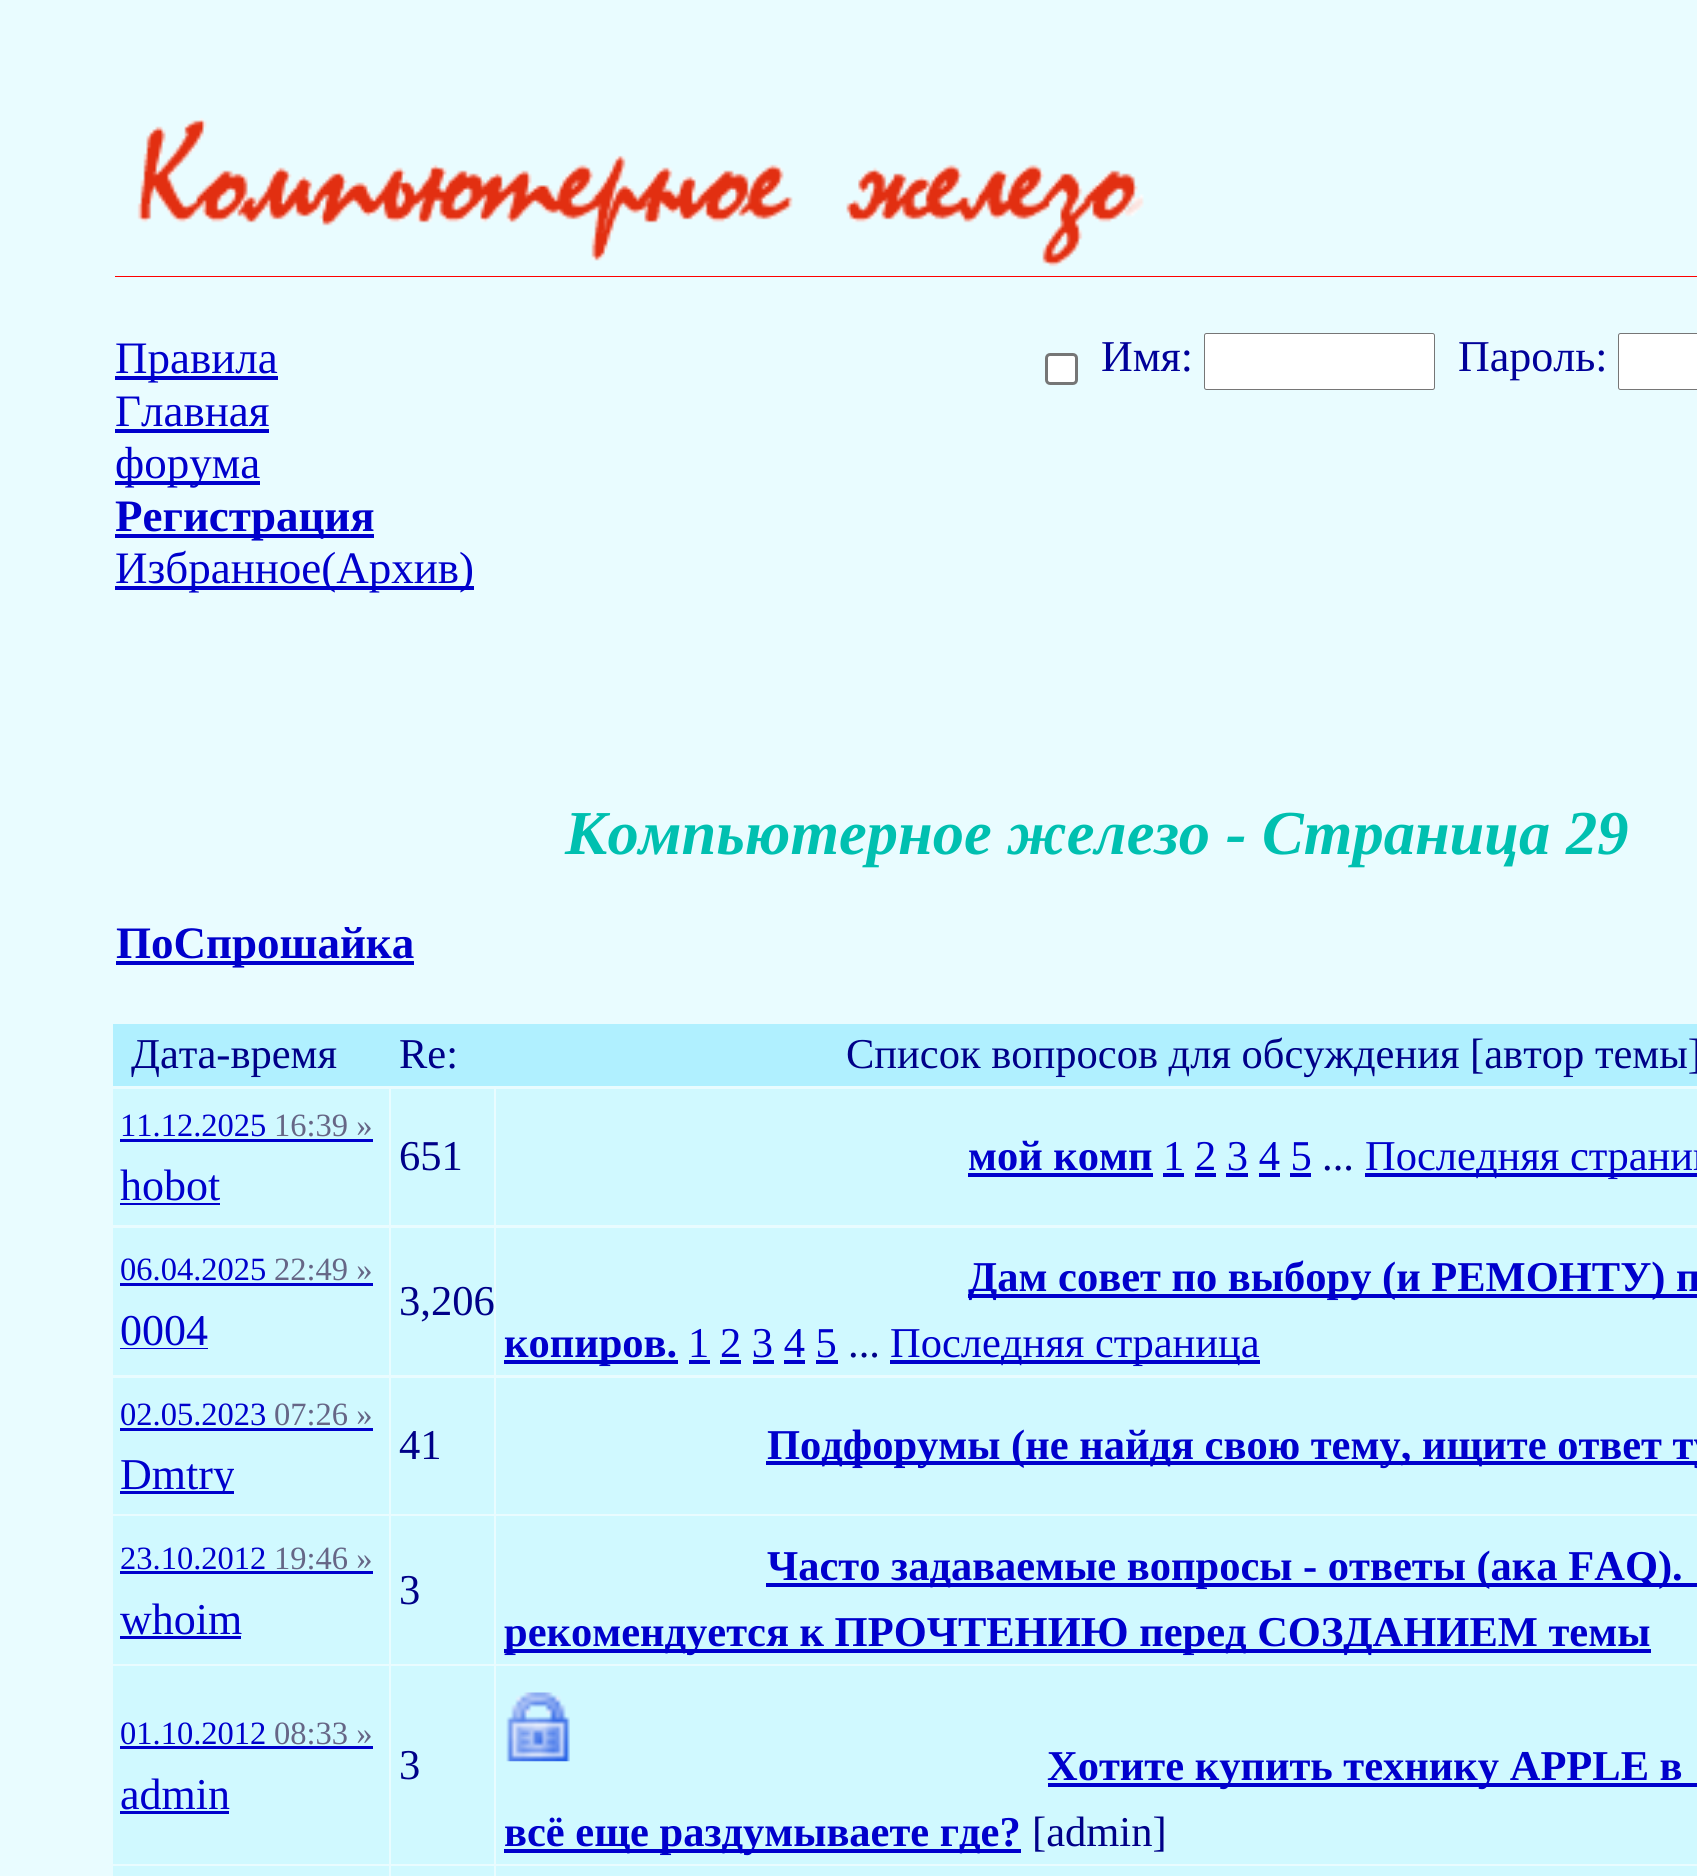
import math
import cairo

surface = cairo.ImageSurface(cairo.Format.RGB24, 1697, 1876)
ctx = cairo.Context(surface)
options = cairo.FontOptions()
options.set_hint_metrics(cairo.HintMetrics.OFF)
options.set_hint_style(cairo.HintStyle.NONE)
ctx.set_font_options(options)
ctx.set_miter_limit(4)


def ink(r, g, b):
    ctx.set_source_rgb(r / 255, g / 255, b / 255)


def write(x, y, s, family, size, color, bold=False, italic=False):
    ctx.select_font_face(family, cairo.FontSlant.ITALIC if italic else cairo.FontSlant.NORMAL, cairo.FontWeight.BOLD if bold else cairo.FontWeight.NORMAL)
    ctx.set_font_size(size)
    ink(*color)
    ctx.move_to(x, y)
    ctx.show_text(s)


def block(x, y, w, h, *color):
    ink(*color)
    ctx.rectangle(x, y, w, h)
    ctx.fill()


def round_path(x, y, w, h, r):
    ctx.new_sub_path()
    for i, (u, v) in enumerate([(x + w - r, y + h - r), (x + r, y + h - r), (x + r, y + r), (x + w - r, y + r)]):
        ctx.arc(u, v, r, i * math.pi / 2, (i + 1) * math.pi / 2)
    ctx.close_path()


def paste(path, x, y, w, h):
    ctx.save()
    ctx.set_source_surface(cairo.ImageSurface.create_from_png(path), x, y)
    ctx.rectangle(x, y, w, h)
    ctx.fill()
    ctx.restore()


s1 = dict(family="Liberation Serif", size=45, color=(0, 0, 204))
s2 = dict(family="Liberation Serif", size=45, color=(0, 0, 204), bold=True)
s3 = dict(family="Liberation Serif", size=44, color=(0, 0, 153))
s4 = dict(family="Liberation Serif", size=62.5, color=(0, 192, 176), bold=True, italic=True)
s5 = dict(family="Liberation Serif", size=42.5, color=(0, 0, 136))
s6 = dict(family="Liberation Serif", size=32.5, color=(0, 0, 204))
s7 = dict(family="Liberation Serif", size=32.5, color=(102, 102, 134))
s8 = dict(family="Liberation Serif", size=44, color=(0, 0, 204))
s9 = dict(family="Liberation Serif", size=42.5, color=(0, 0, 204), bold=True)
s10 = dict(family="Liberation Serif", size=42.5, color=(0, 0, 204))

ink(233, 252, 255)
ctx.paint()
paste("pic1.png", 137, 118, 1007, 149)
block(115, 276, 1582, 1, 255, 0, 0)
block(115, 376, 163, 4, 0, 0, 204)
write(115, 373, "Правила", **s1)
write(115, 426, "Главная", **s1)
block(115, 429, 154, 4, 0, 0, 204)
block(115, 481, 145, 4, 0, 0, 204)
write(115, 478, "форума", **s1)
block(115, 534, 259, 4, 0, 0, 204)
write(115, 531, "Регистрация", **s2)
block(115, 586, 359, 4, 0, 0, 204)
write(115, 583, "Избранное(Архив)", **s1)
ink(255, 255, 255)
round_path(1046.5, 354.5, 30, 29, 3.5)
ctx.fill_preserve()
ink(118, 118, 118)
ctx.set_line_width(3)
ctx.stroke()
write(1101, 371, "Имя:", **s3)
ink(255, 255, 255)
round_path(1204.5, 333.5, 230, 56, 2)
ctx.fill_preserve()
ink(118, 118, 118)
ctx.set_line_width(1)
ctx.stroke()
write(1458, 371, "Пароль:", **s3)
ink(255, 255, 255)
round_path(1618.5, 333.5, 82, 56, 2)
ctx.fill_preserve()
ink(118, 118, 118)
ctx.stroke()
write(565, 854, "Компьютерное железо - Страница 29", **s4)
block(116, 961, 298, 4, 0, 0, 204)
write(116, 958, "ПоСпрошайка", **s2)
block(113, 1024, 1584, 62, 176, 240, 255)
write(131, 1068, "Дата-время", **s5)
write(399, 1068, "Re:", **s5)
write(846, 1068, "Список вопросов для обсуждения [автор темы]", **s5)
block(113, 1089, 276, 136, 208, 249, 255)
write(120, 1136, "11.12.2025", **s6)
block(120, 1139, 253, 3, 0, 0, 204)
write(274, 1136, "16:39 »", **s7)
write(120, 1200, "hobot", **s8)
block(120, 1203, 100, 2, 0, 0, 204)
block(391, 1089, 103, 136, 208, 249, 255)
write(399, 1170, "651", **s5)
block(496, 1089, 1201, 136, 208, 249, 255)
write(968, 1170, "мой комп", **s9)
block(968, 1173, 185, 4, 0, 0, 204)
write(1163, 1170, "1 2 3 4 5", **s10)
block(1163, 1173, 21, 4, 0, 0, 204)
write(1322, 1170, "...", **s5)
block(1365, 1173, 332, 4, 0, 0, 204)
write(1365, 1170, "Последняя страниц", **s10)
block(1195, 1173, 21, 4, 0, 0, 204)
block(1226, 1173, 22, 4, 0, 0, 204)
block(1259, 1173, 21, 4, 0, 0, 204)
block(1290, 1173, 21, 4, 0, 0, 204)
block(113, 1228, 276, 147, 208, 249, 255)
write(120, 1280, "06.04.2025", **s6)
block(120, 1283, 253, 3, 0, 0, 204)
write(274, 1280, "22:49 »", **s7)
write(120, 1345, "0004", **s8)
block(120, 1348, 88, 1, 0, 0, 204)
block(391, 1228, 103, 147, 208, 249, 255)
write(399, 1315, "3,206", **s5)
block(496, 1228, 1201, 147, 208, 249, 255)
block(968, 1294, 729, 4, 0, 0, 204)
write(968, 1291, "Дам совет по выбору (и РЕМОНТУ) п", **s9)
block(504, 1360, 174, 4, 0, 0, 204)
write(504, 1357, "копиров.", **s9)
write(688, 1357, "1 2 3 4 5", **s10)
block(689, 1360, 21, 4, 0, 0, 204)
write(848, 1357, "...", **s5)
block(890, 1360, 370, 4, 0, 0, 204)
write(890, 1357, "Последняя страница", **s10)
block(720, 1360, 21, 4, 0, 0, 204)
block(753, 1360, 21, 4, 0, 0, 204)
block(784, 1360, 21, 4, 0, 0, 204)
block(816, 1360, 22, 4, 0, 0, 204)
block(113, 1378, 276, 136, 208, 249, 255)
write(120, 1425, "02.05.2023", **s6)
block(120, 1428, 253, 3, 0, 0, 204)
write(274, 1425, "07:26 »", **s7)
block(120, 1491, 114, 3, 0, 0, 204)
ctx.save()
ctx.rectangle(120, 1458, 114, 36)
ctx.clip()
write(120, 1489, "Dmtry", **s8)
ctx.restore()
block(391, 1378, 103, 136, 208, 249, 255)
write(399, 1459, "41", **s5)
block(496, 1378, 1201, 136, 208, 249, 255)
block(766, 1461, 931, 4, 0, 0, 204)
write(767, 1459, "Подфорумы (не найдя свою тему, ищите ответ ту", **s9)
block(113, 1516, 276, 148, 208, 249, 255)
write(120, 1569, "23.10.2012", **s6)
block(120, 1571, 253, 3, 0, 0, 204)
write(274, 1569, "19:46 »", **s7)
write(120, 1634, "whoim", **s8)
block(120, 1636, 121, 3, 0, 0, 204)
block(391, 1516, 103, 148, 208, 249, 255)
write(399, 1604, "3", **s5)
block(496, 1516, 1201, 148, 208, 249, 255)
block(766, 1583, 931, 4, 0, 0, 204)
write(767, 1580, "Часто задаваемые вопросы - ответы (ака FAQ).", **s9)
block(504, 1649, 1147, 4, 0, 0, 204)
write(504, 1646, "рекомендуется к ПРОЧТЕНИЮ перед СОЗДАНИЕМ темы", **s9)
block(113, 1666, 276, 198, 208, 249, 255)
write(120, 1744, "01.10.2012", **s6)
block(120, 1746, 253, 3, 0, 0, 204)
write(274, 1744, "08:33 »", **s7)
write(120, 1809, "admin", **s8)
block(120, 1811, 109, 3, 0, 0, 204)
block(391, 1666, 103, 198, 208, 249, 255)
write(399, 1779, "3", **s5)
block(496, 1666, 1201, 198, 208, 249, 255)
paste("pic2.png", 506, 1692, 64, 70)
block(1048, 1783, 649, 4, 0, 0, 204)
write(1047, 1780, "Хотите купить технику APPLE в", **s9)
block(504, 1849, 517, 4, 0, 0, 204)
write(504, 1846, "всё еще раздумываете где?", **s9)
write(1032, 1846, "[admin]", **s5)
block(113, 1866, 276, 10, 208, 249, 255)
block(391, 1866, 103, 10, 208, 249, 255)
block(496, 1866, 1201, 10, 208, 249, 255)
surface.write_to_png("screenshot.png")
